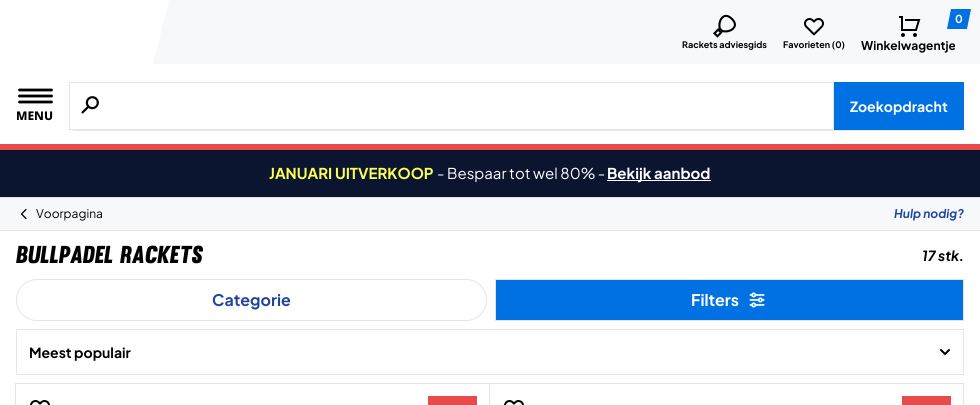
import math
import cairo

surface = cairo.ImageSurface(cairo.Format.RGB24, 980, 405)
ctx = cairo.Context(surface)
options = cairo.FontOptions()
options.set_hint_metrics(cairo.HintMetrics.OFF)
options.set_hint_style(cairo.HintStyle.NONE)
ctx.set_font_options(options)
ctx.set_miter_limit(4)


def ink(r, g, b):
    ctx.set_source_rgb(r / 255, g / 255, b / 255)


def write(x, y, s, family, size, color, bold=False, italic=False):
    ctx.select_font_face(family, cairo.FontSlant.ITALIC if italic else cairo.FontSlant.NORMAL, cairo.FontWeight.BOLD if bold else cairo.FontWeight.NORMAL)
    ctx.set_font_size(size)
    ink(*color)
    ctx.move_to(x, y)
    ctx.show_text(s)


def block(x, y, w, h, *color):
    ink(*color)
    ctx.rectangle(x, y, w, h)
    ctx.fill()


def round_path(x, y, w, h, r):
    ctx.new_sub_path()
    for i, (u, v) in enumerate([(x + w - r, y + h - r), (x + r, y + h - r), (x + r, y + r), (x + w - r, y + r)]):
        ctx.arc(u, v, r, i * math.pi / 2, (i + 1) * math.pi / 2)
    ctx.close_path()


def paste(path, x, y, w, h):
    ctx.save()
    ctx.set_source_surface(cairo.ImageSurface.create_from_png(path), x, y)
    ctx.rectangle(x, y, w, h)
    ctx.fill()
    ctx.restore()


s1 = dict(family="Plus Jakarta Sans", size=9, color=(0, 0, 0), bold=True)
s2 = dict(family="Plus Jakarta Sans", size=11, color=(255, 255, 255), bold=True)
s3 = dict(family="Plus Jakarta Sans", size=12, color=(0, 0, 0), bold=True)
s4 = dict(family="Plus Jakarta Sans", size=14, color=(255, 255, 255), bold=True)
s5 = dict(family="Noto Sans ExtraBold", size=12, color=(0, 0, 0))
s6 = dict(family="Plus Jakarta Sans", size=15, color=(254, 255, 84), bold=True)
s7 = dict(family="Plus Jakarta Sans", size=15, color=(255, 255, 255))
s8 = dict(family="Plus Jakarta Sans", size=15, color=(255, 255, 255), bold=True)
s9 = dict(family="Plus Jakarta Sans", size=12, color=(0, 0, 0))
s10 = dict(family="Plus Jakarta Sans", size=12, color=(33, 69, 159), bold=True, italic=True)
s11 = dict(family="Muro", size=24, color=(0, 0, 0), italic=True)
s12 = dict(family="Plus Jakarta Sans", size=14, color=(0, 0, 0), bold=True, italic=True)
s13 = dict(family="Plus Jakarta Sans", size=16, color=(33, 69, 159), bold=True)
s14 = dict(family="Plus Jakarta Sans", size=16, color=(255, 255, 255), bold=True)
s15 = dict(family="Plus Jakarta Sans", size=14, color=(0, 0, 0), bold=True)

ink(255, 255, 255)
ctx.paint()
block(181, 0, 799, 64, 246, 248, 250)
ctx.new_path()
ctx.move_to(169, 0)
ctx.line_to(197, 0)
ctx.line_to(181, 64)
ctx.line_to(153, 64)
ctx.close_path()
ctx.fill()
paste("pic1.png", 713, 14, 23, 24)
write(682, 48, "Rackets adviesgids", **s1)
paste("pic2.png", 804, 18, 20, 18)
write(783, 48, "Favorieten (0)", **s1)
paste("pic3.png", 899, 16, 22, 21)
ink(0, 113, 227)
ctx.new_path()
ctx.move_to(951, 9)
ctx.line_to(971, 9)
ctx.line_to(967, 29)
ctx.line_to(947, 29)
ctx.close_path()
ctx.fill()
write(955, 23, "0", **s2)
write(861, 50, "Winkelwagentje", **s3)
ink(232, 232, 232)
ctx.new_path()
ctx.move_to(69, 124)
ctx.line_to(69, 125)
ctx.curve_to(69, 128, 72, 131, 75, 131)
ctx.line_to(958, 131)
ctx.curve_to(961, 131, 964, 128, 964, 125)
ctx.line_to(964, 124)
ctx.curve_to(964, 127, 961, 130, 958, 130)
ctx.line_to(75, 130)
ctx.curve_to(72, 130, 69, 127, 69, 124)
ctx.close_path()
ctx.fill()
block(70, 127, 2, 2, 255, 255, 255)
ctx.rectangle(69.5, 82.5, 764, 47)
ink(229, 229, 229)
ctx.set_line_width(1)
ctx.stroke()
paste("pic4.png", 81, 96, 18, 18)
block(834, 82, 130, 48, 0, 113, 227)
write(850, 112, "Zoekopdracht", **s4)
ctx.new_path()
ctx.move_to(19.5, 90)
ctx.line_to(51.5, 90)
ctx.move_to(19.5, 96)
ctx.line_to(51.5, 96)
ctx.move_to(19.5, 102)
ctx.line_to(51.5, 102)
ink(0, 0, 0)
ctx.set_line_width(2.8)
ctx.set_line_cap(cairo.LineCap.ROUND)
ctx.set_line_join(cairo.LineJoin.ROUND)
ctx.stroke()
write(16, 120, "MENU", **s5)
block(0, 144, 980, 6, 232, 75, 74)
block(0, 150, 980, 47, 11, 21, 48)
write(269, 179, "JANUARI UITVERKOOP", **s6)
write(437, 179, "- Bespaar tot wel 80% -", **s7)
block(607, 180, 104, 1, 255, 255, 255)
write(607, 179, "Bekijk aanbod", **s8)
block(0, 198, 980, 32, 246, 248, 250)
block(0, 197, 980, 1, 229, 229, 229)
block(0, 230, 980, 1, 229, 229, 229)
ctx.new_path()
ctx.move_to(26, 218.5)
ctx.line_to(21.5, 214)
ctx.line_to(26, 209.5)
ink(0, 0, 0)
ctx.set_line_width(1.3)
ctx.stroke()
write(36, 218, "Voorpagina", **s9)
write(894, 218, "Hulp nodig?", **s10)
write(16, 263, "Bullpadel Rackets", **s11)
write(922, 261, "17 stk.", **s12)
round_path(16.5, 279.5, 470, 41, 20.5)
ink(229, 229, 229)
ctx.set_line_width(1)
ctx.set_line_cap(cairo.LineCap.BUTT)
ctx.set_line_join(cairo.LineJoin.MITER)
ctx.stroke()
write(212, 306, "Categorie", **s13)
ink(0, 113, 227)
ctx.rectangle(495.5, 279.5, 468, 41)
ctx.fill_preserve()
ink(229, 229, 229)
ctx.stroke()
write(691, 306, "Filters", **s14)
paste("pic5.png", 749, 292, 16, 16)
ctx.rectangle(16.5, 329.5, 947, 45)
ink(229, 229, 229)
ctx.stroke()
write(29, 358, "Meest populair", **s15)
paste("pic6.png", 940, 349, 10, 6)
ctx.rectangle(15.5, 383.5, 474, 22)
ink(229, 229, 229)
ctx.stroke()
paste("pic7.png", 30, 400, 20, 5)
block(428, 396, 49, 9, 232, 75, 74)
ctx.rectangle(489.5, 383.5, 474, 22)
ink(229, 229, 229)
ctx.stroke()
paste("pic7.png", 504, 400, 20, 5)
block(902, 396, 49, 9, 232, 75, 74)
surface.write_to_png("screenshot.png")
